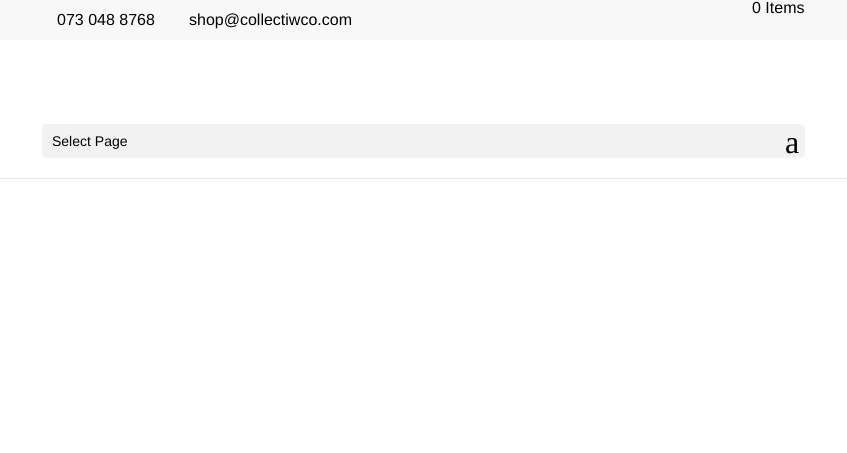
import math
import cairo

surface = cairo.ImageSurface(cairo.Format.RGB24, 847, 453)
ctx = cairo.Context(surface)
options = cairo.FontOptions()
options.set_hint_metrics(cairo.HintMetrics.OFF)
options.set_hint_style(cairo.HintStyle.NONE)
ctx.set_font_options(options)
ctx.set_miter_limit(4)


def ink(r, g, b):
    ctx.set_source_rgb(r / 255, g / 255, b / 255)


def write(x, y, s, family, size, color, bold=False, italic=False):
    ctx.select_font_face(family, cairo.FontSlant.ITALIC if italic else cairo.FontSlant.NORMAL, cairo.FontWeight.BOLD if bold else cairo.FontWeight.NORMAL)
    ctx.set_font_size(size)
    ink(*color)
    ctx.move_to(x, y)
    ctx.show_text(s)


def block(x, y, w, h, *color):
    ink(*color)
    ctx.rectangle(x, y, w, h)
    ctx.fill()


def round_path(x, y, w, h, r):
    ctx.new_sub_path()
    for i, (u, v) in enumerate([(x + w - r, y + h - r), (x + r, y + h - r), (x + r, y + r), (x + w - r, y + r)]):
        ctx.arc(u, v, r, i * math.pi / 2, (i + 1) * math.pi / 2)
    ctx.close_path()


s1 = dict(family="Liberation Sans", size=16, color=(0, 0, 0))
s2 = dict(family="Liberation Sans", size=14, color=(0, 0, 0))
s3 = dict(family="Liberation Serif", size=32, color=(0, 0, 0))

ink(255, 255, 255)
ctx.paint()
block(0, 0, 847, 40, 248, 248, 248)
write(752, 13, "0 Items", **s1)
write(57, 25, "073 048 8768", **s1)
write(189, 25, "shop@collectiwco.com", **s1)
block(0, 178, 847, 1, 230, 230, 230)
ink(242, 242, 242)
round_path(42, 124, 763, 34, 5)
ctx.fill()
write(52, 146, "Select Page", **s2)
write(785, 153, "a", **s3)
surface.write_to_png("screenshot.png")
